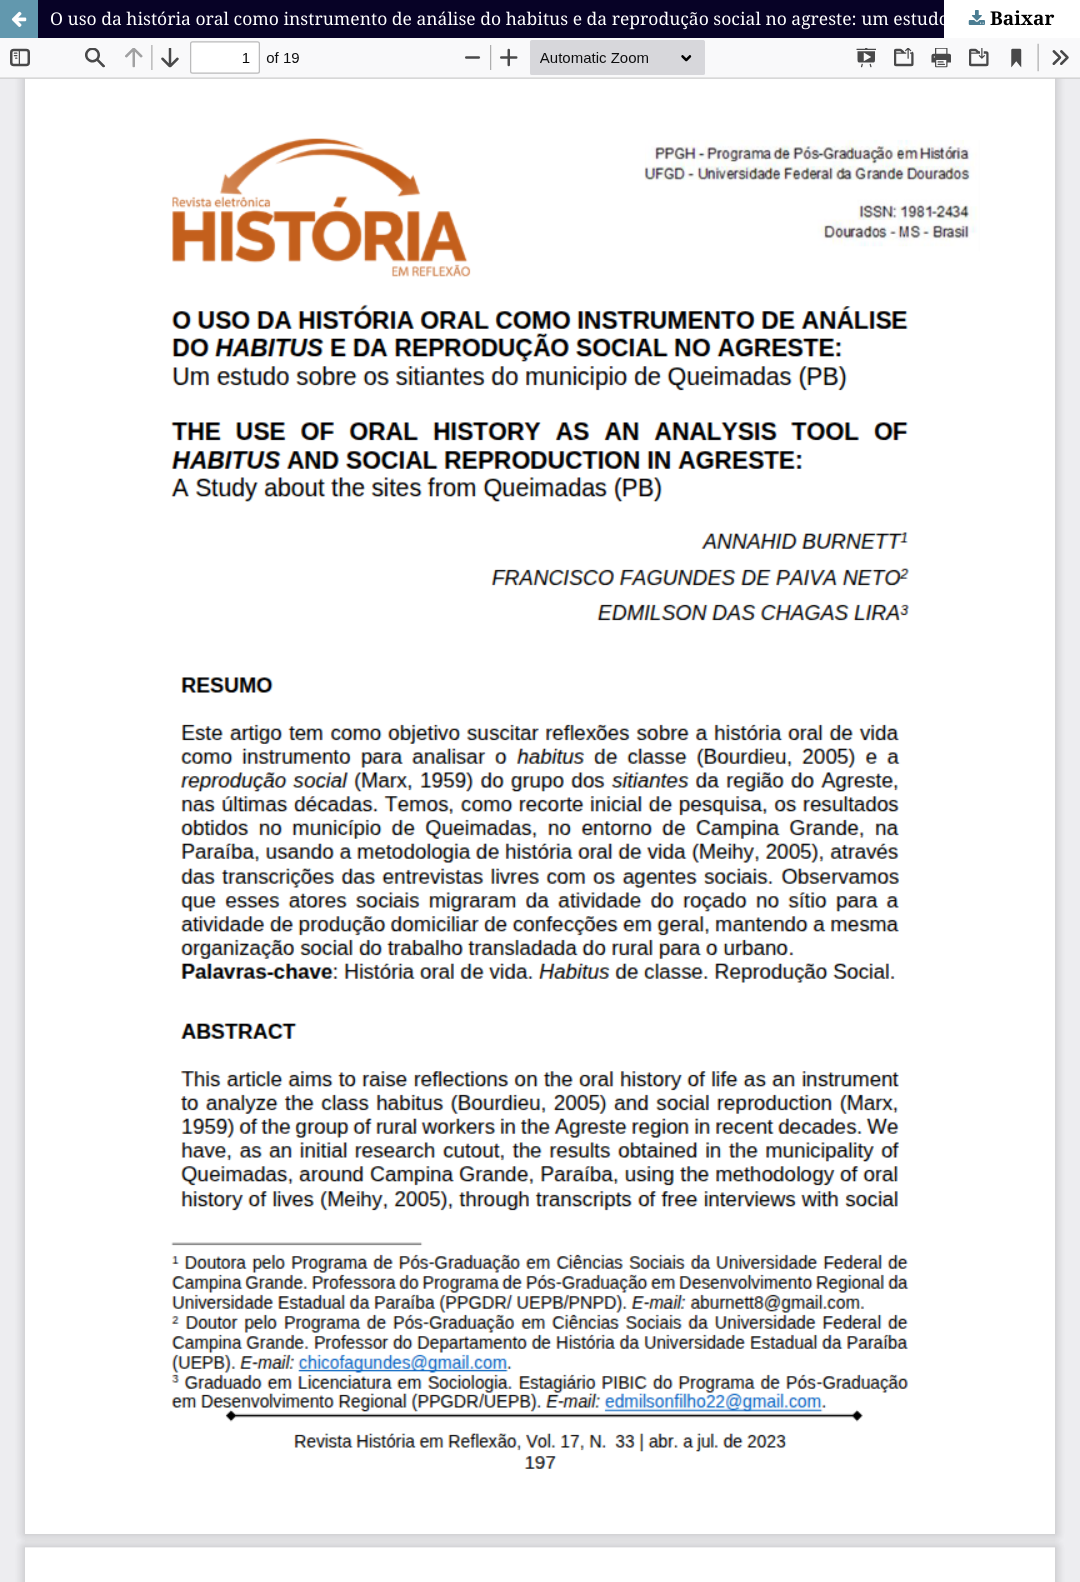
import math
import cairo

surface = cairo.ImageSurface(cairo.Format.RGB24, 1080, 1582)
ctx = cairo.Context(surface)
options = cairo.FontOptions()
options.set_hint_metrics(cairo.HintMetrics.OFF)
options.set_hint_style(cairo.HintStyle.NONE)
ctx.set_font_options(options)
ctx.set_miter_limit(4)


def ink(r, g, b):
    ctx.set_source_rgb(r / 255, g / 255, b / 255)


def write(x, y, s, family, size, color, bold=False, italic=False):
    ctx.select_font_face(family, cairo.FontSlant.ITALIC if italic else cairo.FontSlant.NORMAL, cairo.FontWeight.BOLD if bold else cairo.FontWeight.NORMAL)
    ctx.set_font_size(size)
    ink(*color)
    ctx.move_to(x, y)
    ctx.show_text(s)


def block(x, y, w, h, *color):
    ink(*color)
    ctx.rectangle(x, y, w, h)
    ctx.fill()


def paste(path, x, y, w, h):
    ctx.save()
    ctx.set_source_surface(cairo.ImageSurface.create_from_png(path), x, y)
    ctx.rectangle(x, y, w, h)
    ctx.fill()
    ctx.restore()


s1 = dict(family="Noto Serif", size=17.5, color=(255, 255, 255))
s2 = dict(family="Noto Serif", size=19, color=(0, 0, 0), bold=True)

ink(255, 255, 255)
ctx.paint()
block(38, 0, 906, 38, 7, 2, 38)
block(0, 0, 38, 38, 98, 152, 174)
paste("pic1.png", 11, 11, 16, 16)
write(50, 25, "O uso da história oral como instrumento de análise do habitus e da reprodução social no agreste: um estudo", **s1)
paste("pic2.png", 968, 10, 17, 15)
write(990, 25, "Baixar", **s2)
paste("pic3.png", 0, 38, 1080, 1544)
surface.write_to_png("screenshot.png")
